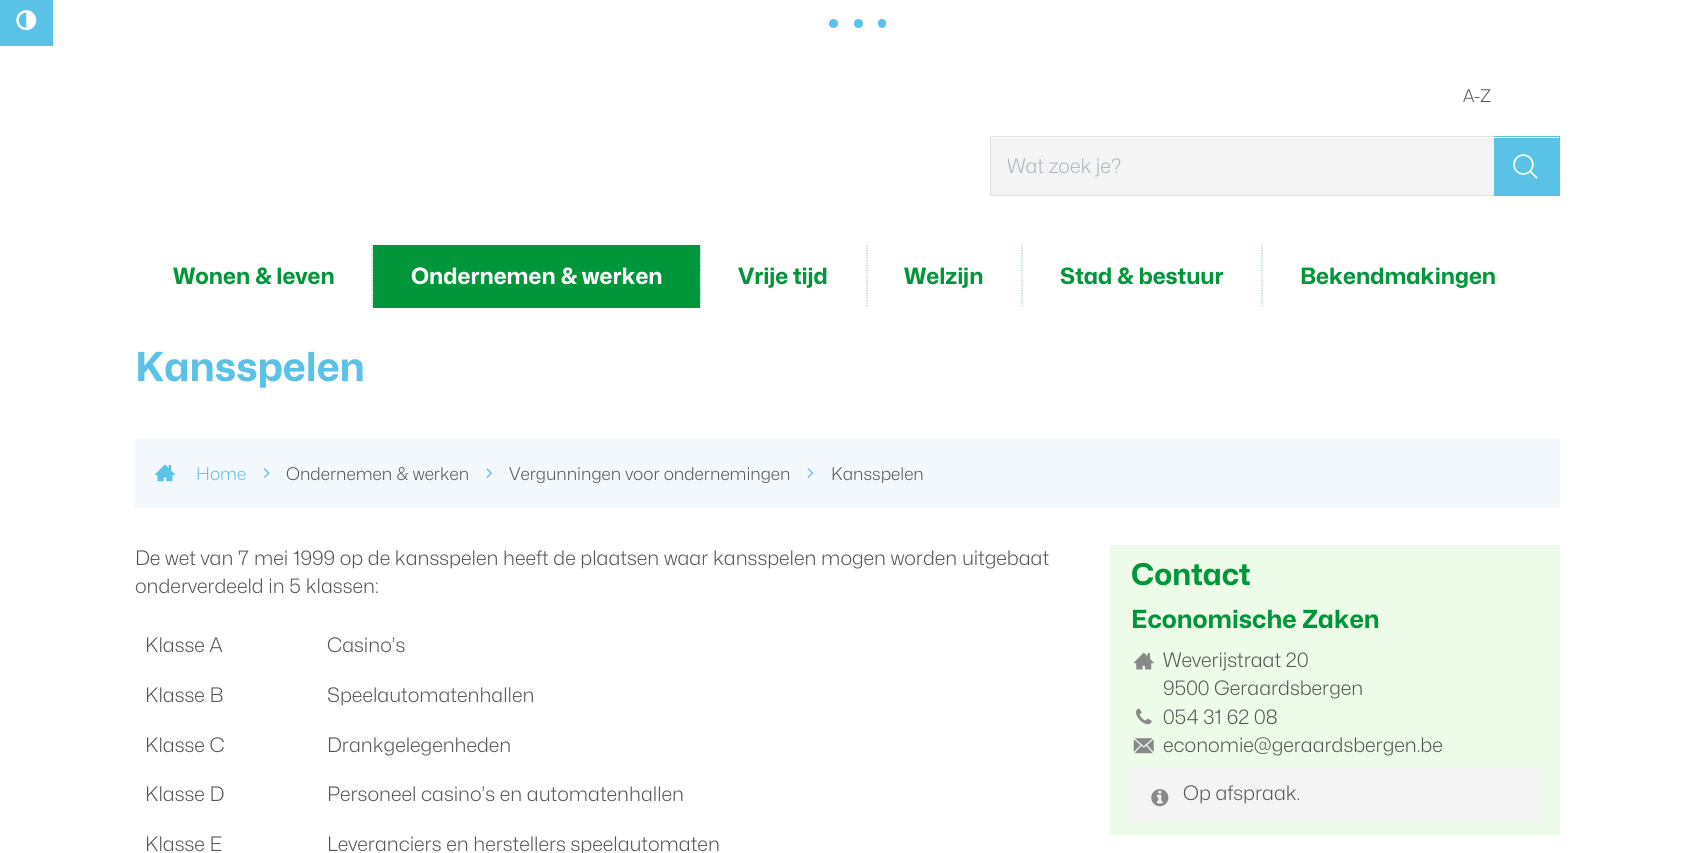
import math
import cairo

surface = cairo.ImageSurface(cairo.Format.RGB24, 1694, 853)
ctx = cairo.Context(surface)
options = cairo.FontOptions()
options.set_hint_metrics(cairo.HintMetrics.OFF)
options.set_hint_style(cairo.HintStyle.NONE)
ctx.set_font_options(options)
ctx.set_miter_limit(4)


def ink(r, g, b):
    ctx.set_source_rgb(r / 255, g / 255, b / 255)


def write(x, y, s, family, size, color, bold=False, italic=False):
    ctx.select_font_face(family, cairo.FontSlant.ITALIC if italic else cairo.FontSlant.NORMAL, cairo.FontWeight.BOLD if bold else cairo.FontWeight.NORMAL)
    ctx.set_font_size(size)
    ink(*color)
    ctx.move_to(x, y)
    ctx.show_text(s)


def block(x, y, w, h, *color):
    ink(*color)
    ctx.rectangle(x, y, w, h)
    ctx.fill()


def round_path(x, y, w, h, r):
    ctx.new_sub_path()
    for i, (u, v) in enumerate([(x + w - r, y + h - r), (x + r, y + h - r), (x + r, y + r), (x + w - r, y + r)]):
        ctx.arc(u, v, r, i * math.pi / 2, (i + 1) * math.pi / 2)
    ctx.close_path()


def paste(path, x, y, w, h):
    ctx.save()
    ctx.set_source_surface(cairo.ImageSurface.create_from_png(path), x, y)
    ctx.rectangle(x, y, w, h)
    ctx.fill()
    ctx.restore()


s1 = dict(family="Mona Sans Light", size=17.5, color=(86, 86, 86))
s2 = dict(family="Mona Sans", size=22.5, color=(0, 150, 57), bold=True)
s3 = dict(family="Mona Sans", size=22.5, color=(255, 255, 255), bold=True)
s4 = dict(family="Mona Sans Light", size=20, color=(169, 182, 193))
s5 = dict(family="Mona Sans", size=40, color=(91, 194, 231), bold=True)
s6 = dict(family="Mona Sans Light", size=17.5, color=(91, 194, 231))
s7 = dict(family="Mona Sans Light", size=20, color=(86, 86, 86))
s8 = dict(family="Mona Sans", size=30, color=(0, 150, 57), bold=True)
s9 = dict(family="Mona Sans", size=25, color=(0, 150, 57), bold=True)

ink(255, 255, 255)
ctx.paint()
ink(91, 194, 231)
ctx.arc(833.5, 23.5, 4.5, 0, 2 * math.pi)
ctx.fill()
ctx.arc(858.5, 23.5, 4.5, 0, 2 * math.pi)
ctx.fill()
round_path(878, 19, 8, 9, 4)
ctx.fill()
block(0, 0, 53, 46, 91, 194, 231)
paste("pic1.png", 16, 10, 21, 21)
write(1463, 102, "A-Z", **s1)
write(173, 284, "Wonen & leven", **s2)
ctx.new_path()
ctx.move_to(372, 245)
ctx.line_to(372, 307.5)
ink(153, 213, 176)
ctx.set_line_width(1.2)
ctx.set_dash([1.25, 1.25])
ctx.stroke()
block(373, 245, 327, 63, 0, 150, 57)
write(411, 284, "Ondernemen & werken", **s3)
ctx.new_path()
ctx.move_to(700.5, 245)
ctx.line_to(700.5, 307.5)
ink(153, 213, 176)
ctx.stroke()
block(701, 245, 1, 61, 255, 255, 255)
write(738, 284, "Vrije tijd", **s2)
ctx.new_path()
ctx.move_to(867, 245)
ctx.line_to(867, 307.5)
ink(153, 213, 176)
ctx.stroke()
write(904, 284, "Welzijn", **s2)
ctx.new_path()
ctx.move_to(1022, 245)
ctx.line_to(1022, 307.5)
ink(153, 213, 176)
ctx.stroke()
write(1060, 284, "Stad & bestuur", **s2)
ctx.new_path()
ctx.move_to(1262, 245)
ctx.line_to(1262, 307.5)
ink(153, 213, 176)
ctx.stroke()
write(1300, 284, "Bekendmakingen", **s2)
block(991, 138, 503, 57, 244, 244, 244)
block(990, 136, 504, 1, 225, 225, 228)
block(990, 195, 504, 1, 225, 225, 228)
block(990, 136, 1, 60, 225, 225, 228)
ctx.save()
ctx.rectangle(1008, 155, 471, 24)
ctx.clip()
write(1007, 173, "Wat zoek je?", **s4)
ctx.restore()
block(1494, 138, 65, 57, 91, 194, 231)
block(1494, 136, 66, 1, 91, 194, 231)
block(1559, 136, 1, 60, 91, 194, 231)
block(1494, 195, 66, 1, 91, 194, 231)
paste("pic2.png", 1513, 154, 25, 25)
write(135, 381, "Kansspelen", **s5)
block(135, 439, 1425, 69, 243, 248, 253)
paste("pic3.png", 155, 464, 20, 18)
write(196, 480, "Home", **s6)
paste("pic4.png", 263, 468, 7, 10)
write(286, 480, "Ondernemen & werken", **s1)
paste("pic5.png", 486, 468, 6, 10)
write(509, 480, "Vergunningen voor ondernemingen", **s1)
paste("pic6.png", 807, 468, 7, 10)
write(831, 480, "Kansspelen", **s1)
write(135, 565, "De wet van 7 mei 1999 op de kansspelen heeft de plaatsen waar kansspelen mogen worden uitgebaat", **s7)
write(135, 593, "onderverdeeld in 5 klassen:", **s7)
write(145, 652, "Klasse A", **s7)
write(327, 652, "Casino’s", **s7)
write(145, 702, "Klasse B", **s7)
write(327, 702, "Speelautomatenhallen", **s7)
write(145, 752, "Klasse C", **s7)
write(327, 752, "Drankgelegenheden", **s7)
write(145, 801, "Klasse D", **s7)
write(327, 801, "Personeel casino’s en automatenhallen", **s7)
write(145, 851, "Klasse E", **s7)
write(327, 851, "Leveranciers en herstellers speelautomaten", **s7)
ink(237, 251, 233)
ctx.rectangle(1110.5, 545.5, 449, 289)
ctx.fill_preserve()
ctx.set_line_width(1)
ctx.set_dash([])
ctx.stroke()
write(1131, 585, "Contact", **s8)
write(1131, 628, "Economische Zaken", **s9)
paste("pic7.png", 1133, 652, 21, 18)
write(1163, 667, "Weverijstraat 20", **s7)
write(1163, 695, "9500 Geraardsbergen", **s7)
paste("pic8.png", 1135, 708, 17, 17)
write(1163, 724, "054 31 62 08", **s7)
paste("pic9.png", 1133, 738, 21, 16)
write(1163, 752, "economie@geraardsbergen.be", **s7)
block(1131, 768, 408, 53, 244, 244, 244)
paste("pic10.png", 1151, 789, 18, 18)
write(1183, 800, "Op afspraak.", **s7)
surface.write_to_png("screenshot.png")
